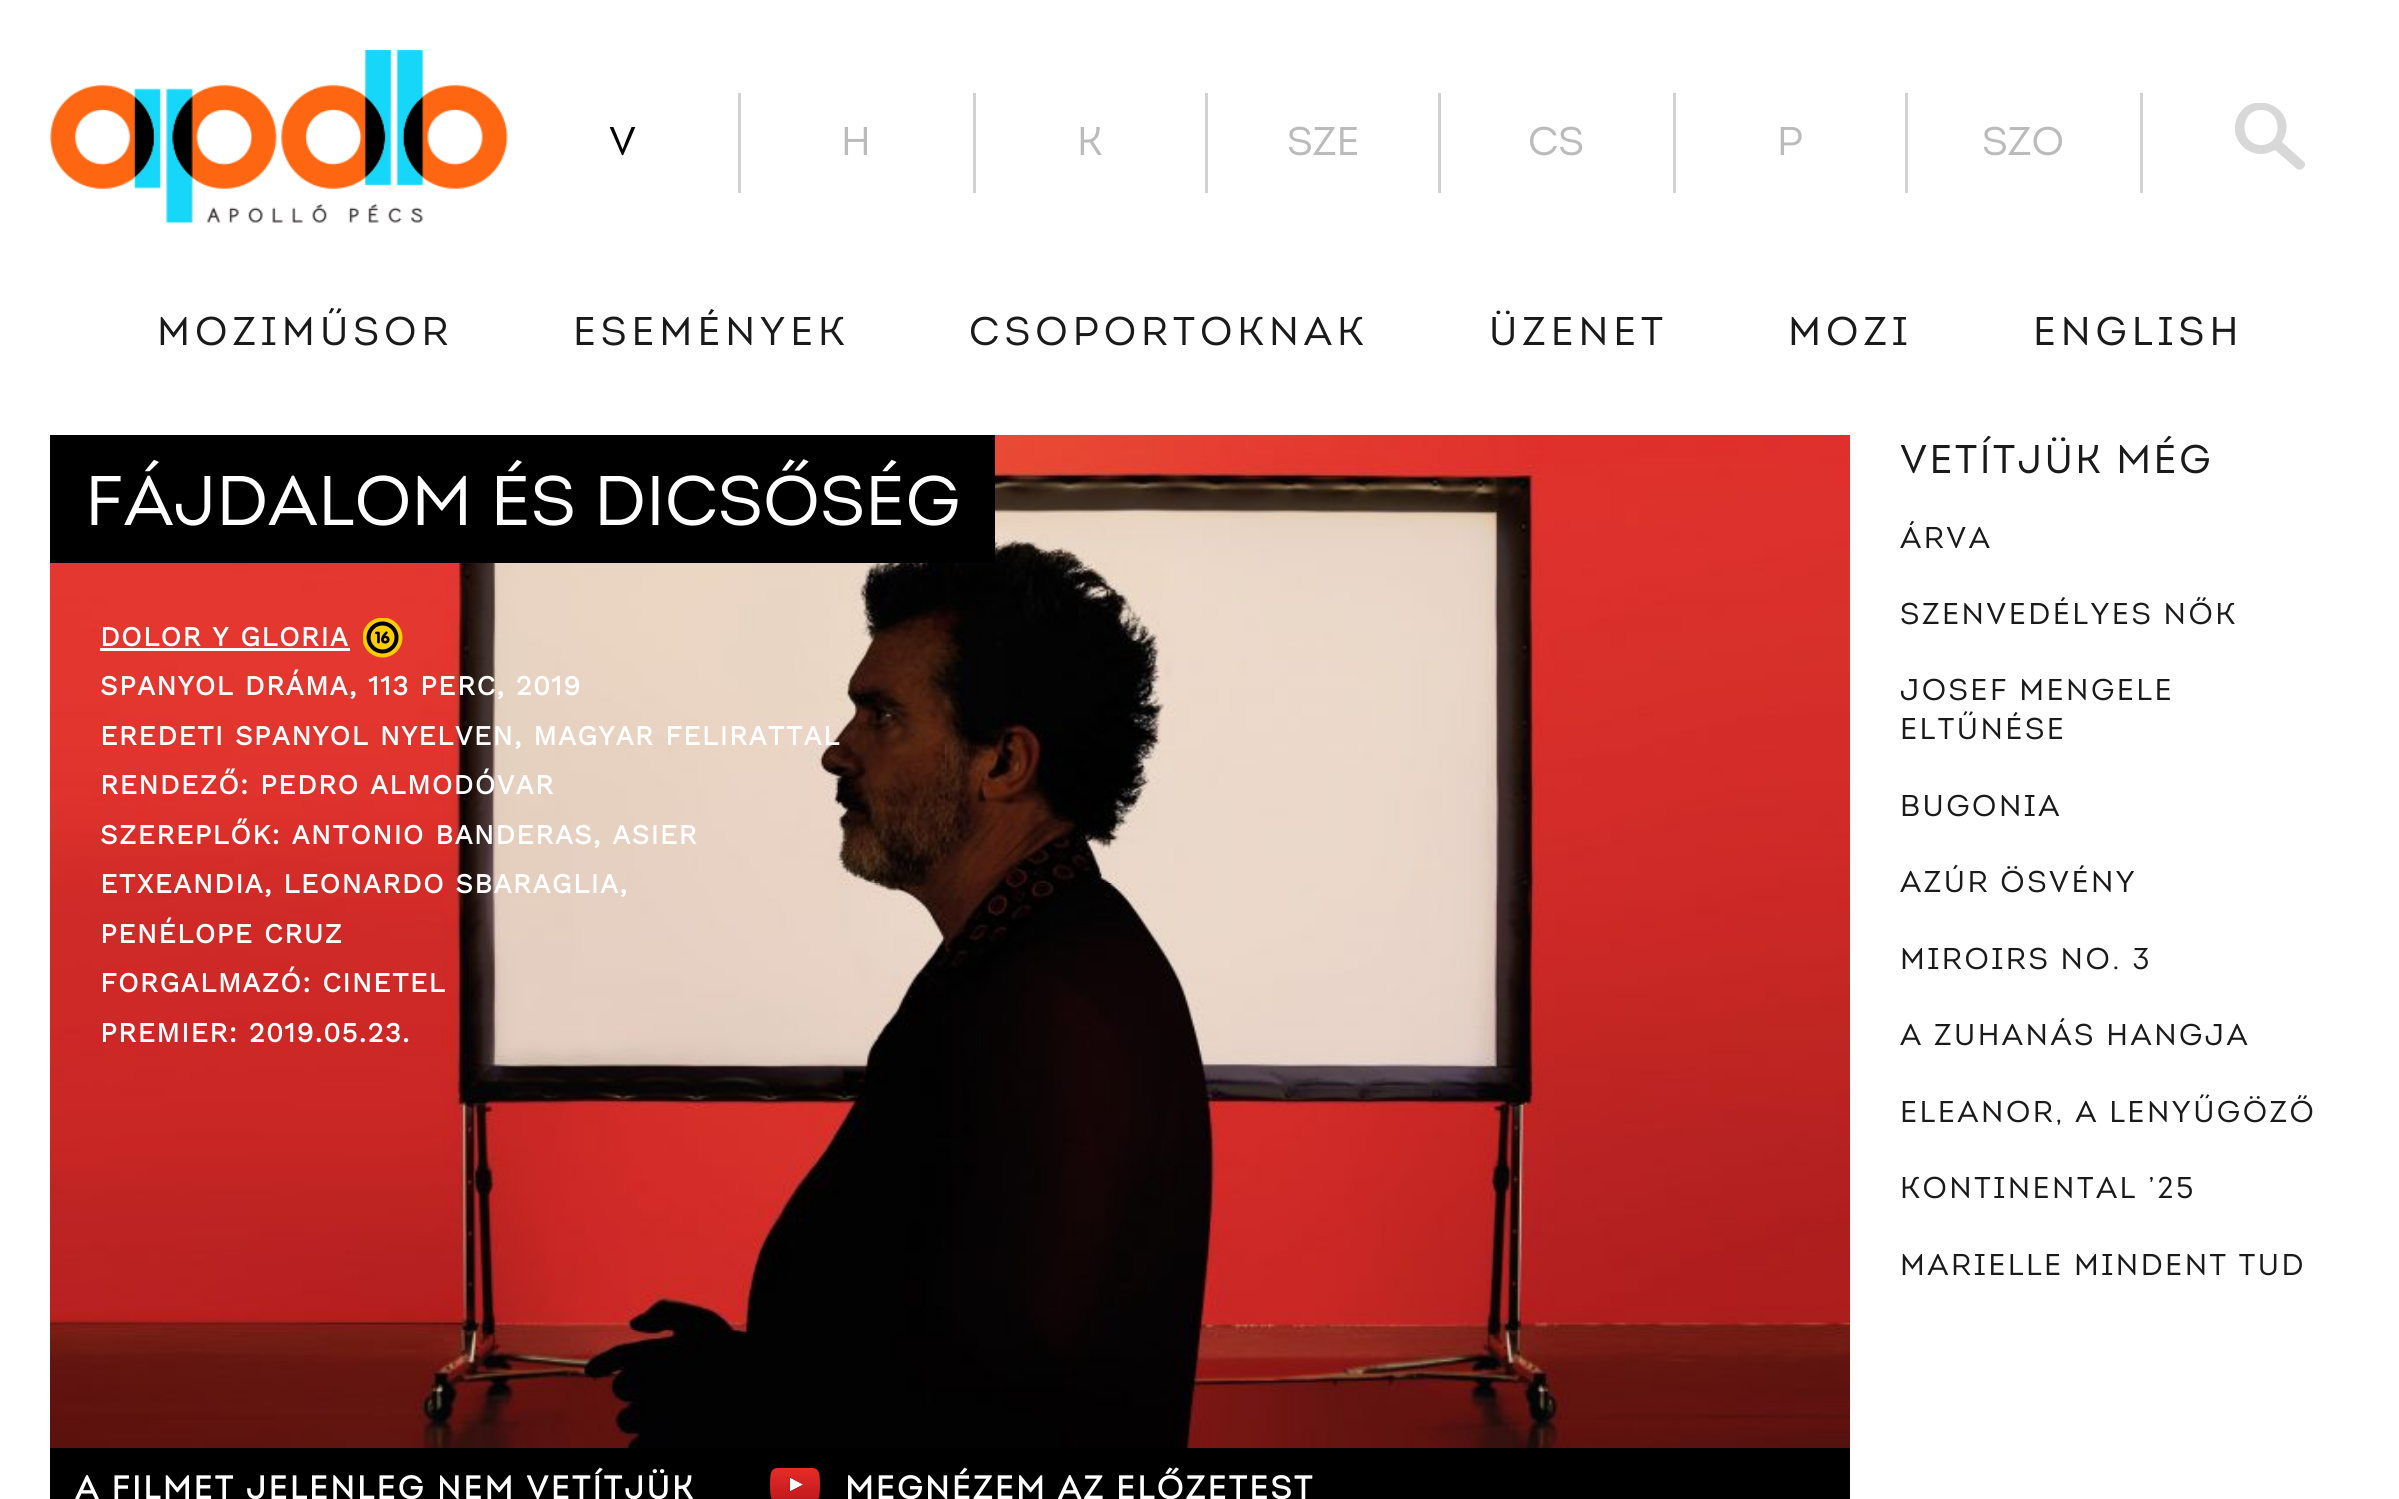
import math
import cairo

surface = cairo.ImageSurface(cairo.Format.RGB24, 2399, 1499)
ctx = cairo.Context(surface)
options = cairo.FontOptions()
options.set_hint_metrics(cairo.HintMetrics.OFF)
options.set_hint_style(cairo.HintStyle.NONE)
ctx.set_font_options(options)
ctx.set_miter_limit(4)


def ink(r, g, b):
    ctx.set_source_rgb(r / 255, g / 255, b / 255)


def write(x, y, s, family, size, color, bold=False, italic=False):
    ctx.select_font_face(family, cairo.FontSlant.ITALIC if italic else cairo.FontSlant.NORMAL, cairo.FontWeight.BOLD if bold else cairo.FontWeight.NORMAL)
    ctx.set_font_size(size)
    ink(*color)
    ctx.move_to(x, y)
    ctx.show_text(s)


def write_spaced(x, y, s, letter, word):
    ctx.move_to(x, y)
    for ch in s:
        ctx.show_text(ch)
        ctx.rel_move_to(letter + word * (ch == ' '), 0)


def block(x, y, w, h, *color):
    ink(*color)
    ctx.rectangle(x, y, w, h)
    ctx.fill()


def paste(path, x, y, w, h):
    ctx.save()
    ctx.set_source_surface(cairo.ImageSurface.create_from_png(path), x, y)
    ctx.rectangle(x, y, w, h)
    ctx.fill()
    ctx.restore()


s1 = dict(family="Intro", size=40, color=(0, 0, 0))
s2 = dict(family="Intro", size=40, color=(187, 187, 187))
s3 = dict(family="Intro", size=70, color=(255, 255, 255))

ink(255, 255, 255)
ctx.paint()
paste("pic1.png", 50, 50, 458, 173)
block(738, 93, 3, 100, 210, 210, 210)
write(609, 155, "V", **s1)
block(973, 93, 3, 100, 210, 210, 210)
write(841, 155, "H", **s2)
block(1205, 93, 3, 100, 210, 210, 210)
write(1077, 155, "K", **s2)
block(1438, 93, 3, 100, 210, 210, 210)
write(1287, 155, "SZE", **s2)
block(1673, 93, 3, 100, 210, 210, 210)
write(1528, 155, "CS", **s2)
block(1905, 93, 3, 100, 210, 210, 210)
write(1777, 155, "P", **s2)
block(2140, 93, 3, 100, 210, 210, 210)
write(1982, 155, "SZO", **s2)
ctx.save()
ctx.rectangle(2235, 103, 70, 67)
ctx.clip()
ink(216, 216, 216)
ctx.set_fill_rule(cairo.FillRule.EVEN_ODD)
ctx.new_path()
ctx.move_to(2261, 154)
ctx.curve_to(2251, 154, 2241, 148, 2237, 138)
ctx.curve_to(2234, 132, 2234, 125, 2237, 118)
ctx.curve_to(2251, 86, 2302, 108, 2282, 142)
ctx.line_to(2303, 161)
ctx.curve_to(2305, 162, 2306, 165, 2304, 167)
ctx.curve_to(2302, 170, 2300, 170, 2297, 169)
ctx.line_to(2275, 150)
ctx.curve_to(2269, 153, 2264, 154, 2261, 154)
ctx.close_path()
ctx.move_to(2261, 145)
ctx.curve_to(2283, 145, 2283, 110, 2261, 110)
ctx.curve_to(2239, 110, 2239, 145, 2261, 145)
ctx.close_path()
ctx.fill()
ctx.restore()
ctx.select_font_face("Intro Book")
ink(26, 26, 26)
write_spaced(157, 345, "MOZIMŰSOR", 5, 0)
write_spaced(573, 345, "ESEMÉNYEK", 5, 0)
write_spaced(969, 345, "CSOPORTOKNAK", 5, 0)
write_spaced(1489, 345, "ÜZENET", 5, 0)
write_spaced(1788, 345, "MOZI", 5, 0)
write_spaced(2033, 345, "ENGLISH", 5, 0)
paste("pic2.png", 50, 435, 1800, 1013)
block(50, 435, 945, 128, 0, 0, 0)
write(85, 525, "FÁJDALOM ÉS DICSŐSÉG", **s3)
ctx.select_font_face("Work Sans", cairo.FontSlant.NORMAL, cairo.FontWeight.BOLD)
ctx.set_font_size(27.5)
write_spaced(100, 646, "DOLOR Y GLORIA", 1.25, 0)
block(100, 648, 250, 3, 255, 255, 255)
paste("pic3.png", 363, 618, 40, 40)
write_spaced(100, 695, "SPANYOL DRÁMA, 113 PERC, 2019", 1.25, 0)
write_spaced(100, 745, "EREDETI SPANYOL NYELVEN, MAGYAR FELIRATTAL", 1.25, 0)
write_spaced(100, 794, "RENDEZŐ: PEDRO ALMODÓVAR", 1.25, 0)
write_spaced(100, 844, "SZEREPLŐK: ANTONIO BANDERAS, ASIER", 1.25, 0)
write_spaced(100, 893, "ETXEANDIA, LEONARDO SBARAGLIA,", 1.25, 0)
write_spaced(100, 943, "PENÉLOPE CRUZ", 1.25, 0)
write_spaced(100, 992, "FORGALMAZÓ: CINETEL", 1.25, 0)
write_spaced(100, 1042, "PREMIER: 2019.05.23.", 1.25, 0)
block(50, 1448, 1800, 51, 0, 0, 0)
ctx.select_font_face("Intro", cairo.FontSlant.NORMAL, cairo.FontWeight.BOLD)
ctx.set_font_size(32.5)
ink(255, 255, 255)
write_spaced(75, 1499, "A FILMET JELENLEG NEM VETÍTJÜK", 2.5, 0)
paste("pic4.png", 770, 1468, 50, 31)
write_spaced(845, 1499, "MEGNÉZEM AZ ELŐZETEST", 2.5, 0)
ctx.select_font_face("Intro")
ctx.set_font_size(40)
ink(26, 26, 26)
write_spaced(1900, 473, "VETÍTJÜK MÉG", 2.5, 0)
ctx.select_font_face("Intro Book")
ctx.set_font_size(30)
write_spaced(1900, 548, "ÁRVA", 2.5, 0)
write_spaced(1900, 624, "SZENVEDÉLYES NŐK", 2.5, 0)
write_spaced(1900, 700, "JOSEF MENGELE", 2.5, 0)
write_spaced(1900, 739, "ELTŰNÉSE", 2.5, 0)
write_spaced(1900, 816, "BUGONIA", 2.5, 0)
write_spaced(1900, 892, "AZÚR ÖSVÉNY", 2.5, 0)
write_spaced(1900, 969, "MIROIRS NO. 3", 2.5, 0)
write_spaced(1900, 1045, "A ZUHANÁS HANGJA", 2.5, 0)
write_spaced(1900, 1122, "ELEANOR, A LENYŰGÖZŐ", 2.5, 0)
write_spaced(1900, 1198, "KONTINENTAL ’25", 2.5, 0)
write_spaced(1900, 1275, "MARIELLE MINDENT TUD", 2.5, 0)
surface.write_to_png("screenshot.png")
